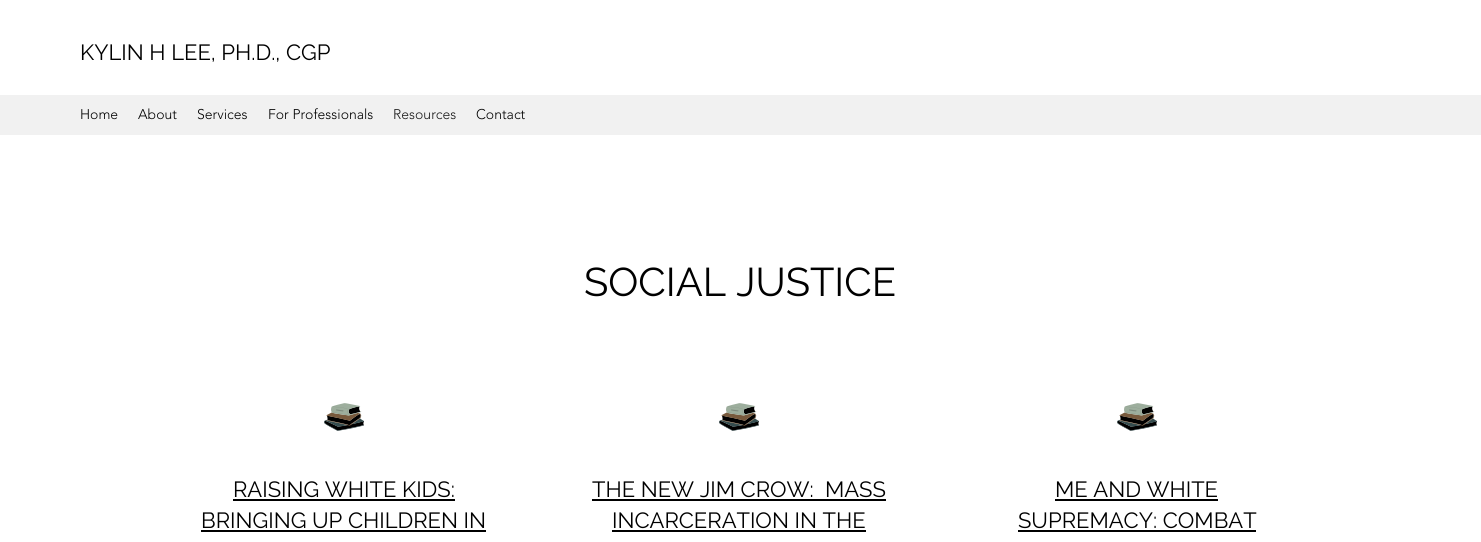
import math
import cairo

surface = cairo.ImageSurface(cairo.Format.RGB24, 1481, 542)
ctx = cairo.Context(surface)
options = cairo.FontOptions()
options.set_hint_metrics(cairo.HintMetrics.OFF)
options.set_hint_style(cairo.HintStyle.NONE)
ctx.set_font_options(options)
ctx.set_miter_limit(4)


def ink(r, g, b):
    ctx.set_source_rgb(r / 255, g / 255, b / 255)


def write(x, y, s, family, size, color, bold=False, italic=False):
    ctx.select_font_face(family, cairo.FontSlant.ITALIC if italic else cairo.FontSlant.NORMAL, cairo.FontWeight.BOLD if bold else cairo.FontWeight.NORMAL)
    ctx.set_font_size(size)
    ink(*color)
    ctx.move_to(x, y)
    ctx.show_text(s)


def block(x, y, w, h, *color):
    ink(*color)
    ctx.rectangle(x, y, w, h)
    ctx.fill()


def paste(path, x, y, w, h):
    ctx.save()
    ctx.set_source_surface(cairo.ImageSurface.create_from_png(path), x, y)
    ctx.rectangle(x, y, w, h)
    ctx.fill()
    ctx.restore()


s1 = dict(family="Raleway", size=22, color=(0, 0, 0))
s2 = dict(family="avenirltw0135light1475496 Light", size=14, color=(0, 0, 0))
s3 = dict(family="avenirltw0135light1475496 Light", size=14, color=(25, 25, 25))
s4 = dict(family="Raleway", size=40, color=(0, 0, 0))

ink(255, 255, 255)
ctx.paint()
write(80, 60, "KYLIN H LEE, PH.D., CGP", **s1)
block(0, 95, 1481, 40, 241, 241, 241)
write(80, 119, "Home", **s2)
write(138, 119, "About", **s2)
write(197, 119, "Services", **s2)
write(268, 119, "For Professionals", **s2)
write(393, 119, "Resources", **s3)
write(476, 119, "Contact", **s2)
write(584, 296, "SOCIAL JUSTICE", **s4)
paste("pic1.png", 324, 403, 40, 28)
write(233, 497, "RAISING WHITE KIDS:", **s1)
block(233, 499, 222, 2, 0, 0, 0)
write(201, 528, "BRINGING UP CHILDREN IN", **s1)
block(201, 530, 285, 2, 0, 0, 0)
paste("pic1.png", 719, 403, 40, 28)
write(592, 497, "THE NEW JIM CROW:  MASS", **s1)
block(592, 499, 294, 2, 0, 0, 0)
write(612, 528, "INCARCERATION IN THE", **s1)
block(612, 530, 254, 2, 0, 0, 0)
paste("pic1.png", 1117, 403, 40, 28)
write(1055, 497, "ME AND WHITE", **s1)
block(1055, 499, 163, 2, 0, 0, 0)
write(1018, 528, "SUPREMACY: COMBAT", **s1)
block(1018, 530, 238, 2, 0, 0, 0)
surface.write_to_png("screenshot.png")
